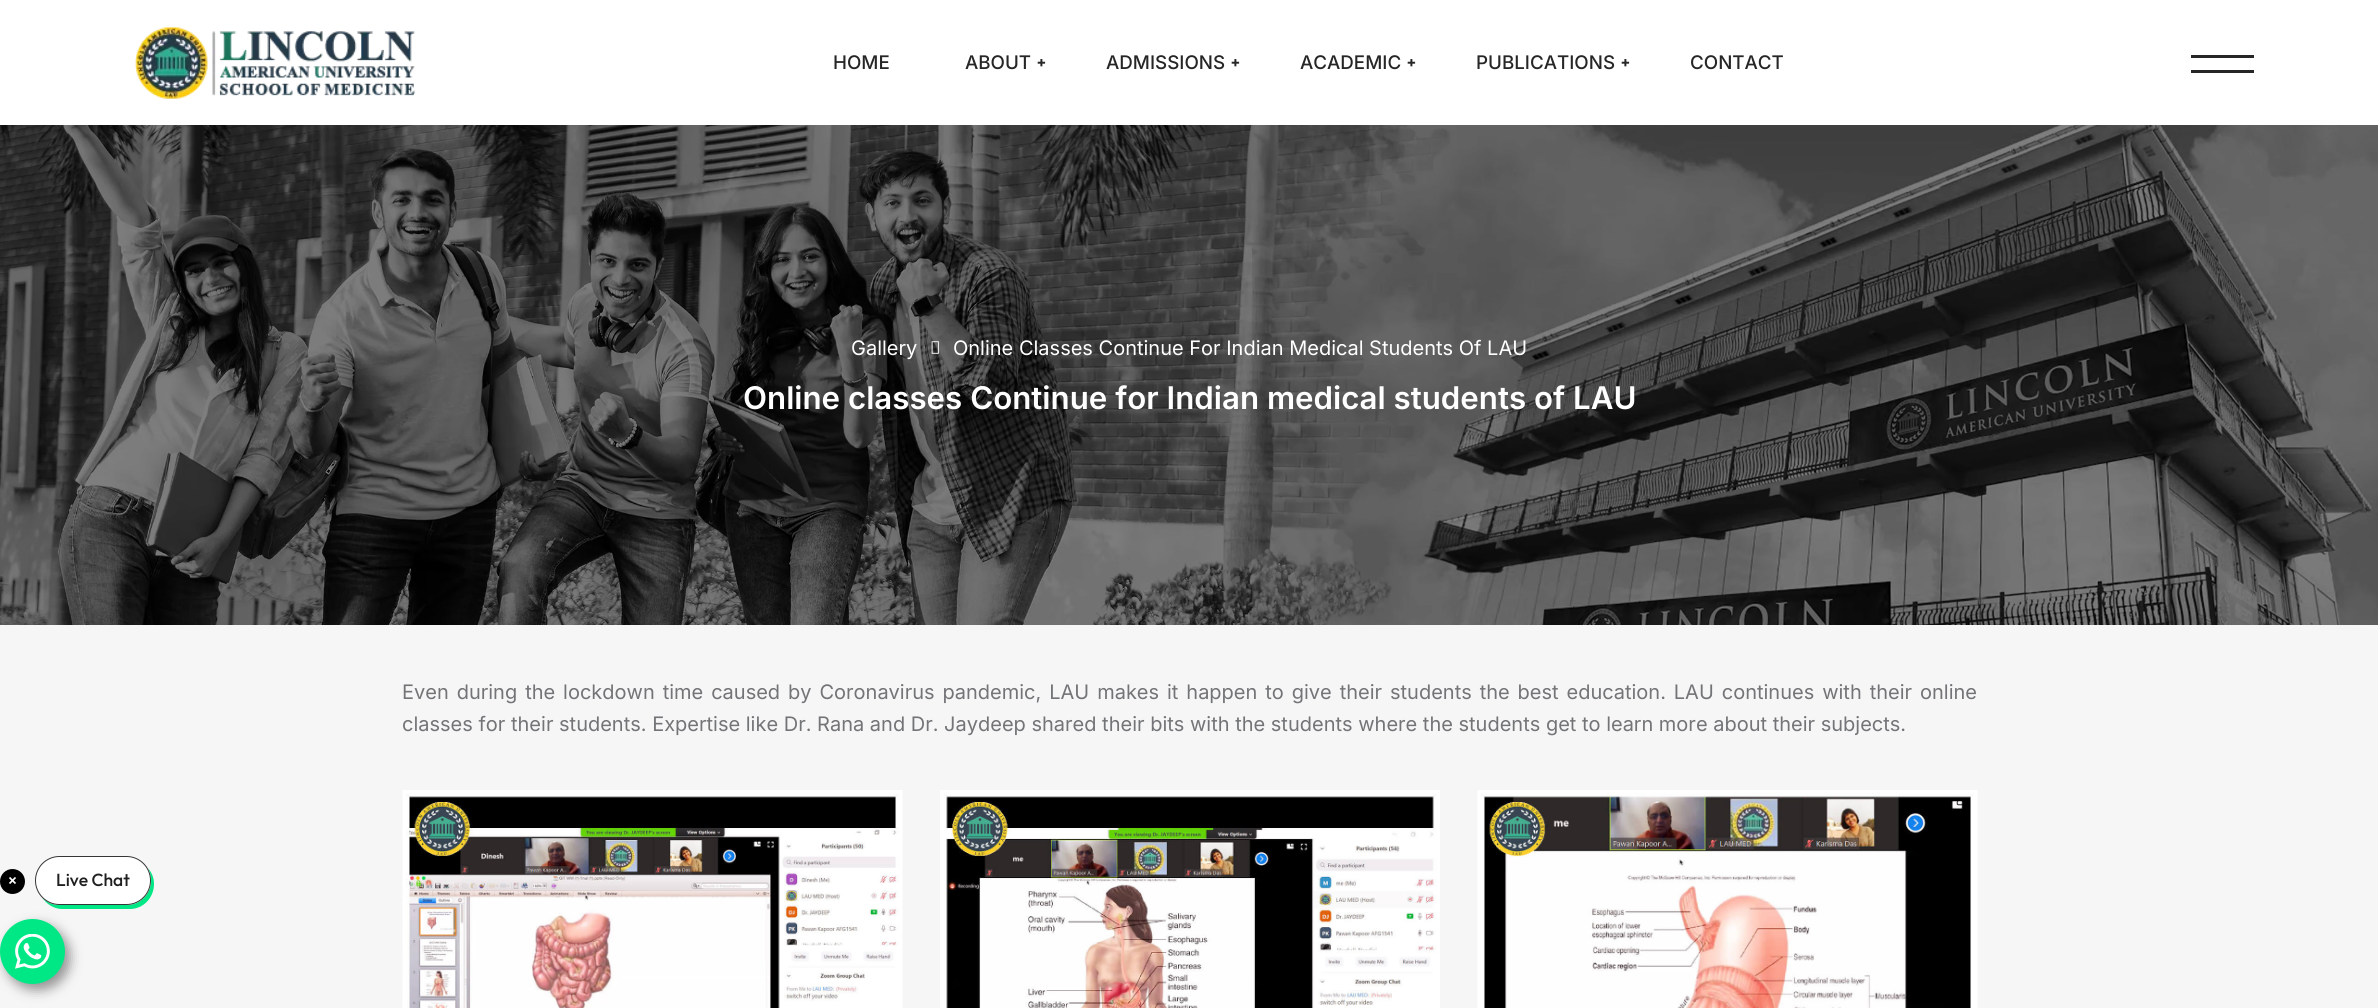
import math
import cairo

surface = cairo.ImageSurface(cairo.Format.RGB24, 2378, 1008)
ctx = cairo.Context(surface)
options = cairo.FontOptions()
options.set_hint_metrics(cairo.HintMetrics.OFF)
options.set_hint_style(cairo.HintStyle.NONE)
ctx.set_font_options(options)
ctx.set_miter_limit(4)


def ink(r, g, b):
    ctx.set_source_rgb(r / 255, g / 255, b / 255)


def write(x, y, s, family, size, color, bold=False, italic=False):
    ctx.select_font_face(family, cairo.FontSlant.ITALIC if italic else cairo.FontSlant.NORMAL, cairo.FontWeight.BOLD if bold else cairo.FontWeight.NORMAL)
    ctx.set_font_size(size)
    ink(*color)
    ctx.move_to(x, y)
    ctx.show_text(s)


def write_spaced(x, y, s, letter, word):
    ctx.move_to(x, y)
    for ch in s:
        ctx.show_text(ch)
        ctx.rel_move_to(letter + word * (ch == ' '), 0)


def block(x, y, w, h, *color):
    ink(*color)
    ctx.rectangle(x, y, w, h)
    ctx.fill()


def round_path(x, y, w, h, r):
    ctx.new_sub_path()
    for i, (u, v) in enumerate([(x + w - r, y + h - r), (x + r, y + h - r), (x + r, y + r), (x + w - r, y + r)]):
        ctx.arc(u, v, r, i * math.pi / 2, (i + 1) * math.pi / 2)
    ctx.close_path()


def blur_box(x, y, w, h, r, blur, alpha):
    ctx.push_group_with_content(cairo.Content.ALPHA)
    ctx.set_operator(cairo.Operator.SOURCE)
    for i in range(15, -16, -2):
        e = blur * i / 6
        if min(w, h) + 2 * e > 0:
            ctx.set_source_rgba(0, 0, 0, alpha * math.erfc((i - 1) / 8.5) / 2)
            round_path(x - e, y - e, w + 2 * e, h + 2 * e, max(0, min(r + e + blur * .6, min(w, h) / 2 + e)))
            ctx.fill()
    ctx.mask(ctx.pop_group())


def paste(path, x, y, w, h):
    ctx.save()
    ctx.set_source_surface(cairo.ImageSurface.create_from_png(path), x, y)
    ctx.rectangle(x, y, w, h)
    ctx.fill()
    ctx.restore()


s1 = dict(family="Inter Medium", size=18.75, color=(38, 38, 38))
s2 = dict(family="Noto Sans Black", size=15, color=(38, 38, 38))
s3 = dict(family="Inter", size=20, color=(255, 255, 255))
s4 = dict(family="Inter SemiBold", size=31.25, color=(255, 255, 255))
s5 = dict(family="Inter", size=20, color=(115, 116, 119))
s6 = dict(family="Outfit Medium", size=17.5, color=(32, 32, 32))

ink(255, 255, 255)
ctx.paint()
paste("pic1.png", 135, 27, 281, 72)
write(833, 69, "HOME", **s1)
write(965, 69, "ABOUT", **s1)
write(1037, 68, "+", **s2)
write(1106, 69, "ADMISSIONS", **s1)
write(1231, 68, "+", **s2)
write(1300, 69, "ACADEMIC", **s1)
write(1407, 68, "+", **s2)
write(1476, 69, "PUBLICATIONS", **s1)
write(1621, 68, "+", **s2)
write(1690, 69, "CONTACT", **s1)
block(2191, 55, 63, 3, 38, 38, 38)
block(2191, 70, 63, 3, 38, 38, 38)
paste("pic2.png", 0, 125, 2378, 500)
write(851, 355, "Gallery", **s3)
paste("pic3.png", 931, 341, 8, 13)
write(953, 355, "Online Classes Continue For Indian Medical Students Of LAU", **s3)
write(743, 409, "Online classes Continue for Indian medical students of LAU", **s4)
block(0, 625, 2378, 383, 246, 246, 246)
ctx.select_font_face("Inter")
ctx.set_font_size(20)
ink(115, 116, 119)
write_spaced(402, 699, "Even during the lockdown time caused by Coronavirus pandemic, LAU makes it happen to give their students the best education. LAU continues with their online", 0, 2.3)
write(402, 731, "classes for their students. Expertise like Dr. Rana and Dr. Jaydeep shared their bits with the students where the students get to learn more about their subjects.", **s5)
paste("pic4.png", 402, 790, 501, 218)
paste("pic5.png", 940, 790, 500, 218)
paste("pic6.png", 1477, 790, 501, 218)
ink(0, 0, 0)
ctx.arc(12.5, 881.5, 12.5, 0, 2 * math.pi)
ctx.fill()
ctx.new_path()
ctx.move_to(9.5, 877.5)
ctx.line_to(15.5, 883.5)
ctx.move_to(9.5, 883.5)
ctx.line_to(15.5, 877.5)
ink(255, 255, 255)
ctx.set_line_width(1.7)
ctx.stroke()
ink(0, 0, 0)
blur_box(5, 925, 65, 65, 32.5, 6, 0.4)
ink(0, 231, 133)
ctx.new_path()
ctx.move_to(42, 897)
ctx.curve_to(46, 904, 54, 909, 62, 909)
ctx.line_to(130, 909)
ctx.curve_to(143, 909, 154, 898, 154, 884)
ctx.curve_to(154, 878, 152, 873, 148, 868)
ctx.curve_to(150, 872, 151, 876, 151, 881)
ctx.curve_to(151, 894, 140, 905, 127, 905)
ctx.line_to(59, 905)
ctx.curve_to(52, 905, 46, 902, 42, 897)
ctx.close_path()
ctx.fill()
ink(255, 255, 255)
round_path(35.5, 856.5, 115, 48, 24)
ctx.fill_preserve()
ink(54, 54, 54)
ctx.set_line_width(1)
ctx.stroke()
write(56, 886, "Live Chat", **s6)
ink(0, 231, 133)
ctx.new_path()
ctx.arc(32.5, 951.5, 32.5, 0, 2 * math.pi)
ctx.fill()
paste("pic7.png", 15, 934, 35, 35)
surface.write_to_png("screenshot.png")
